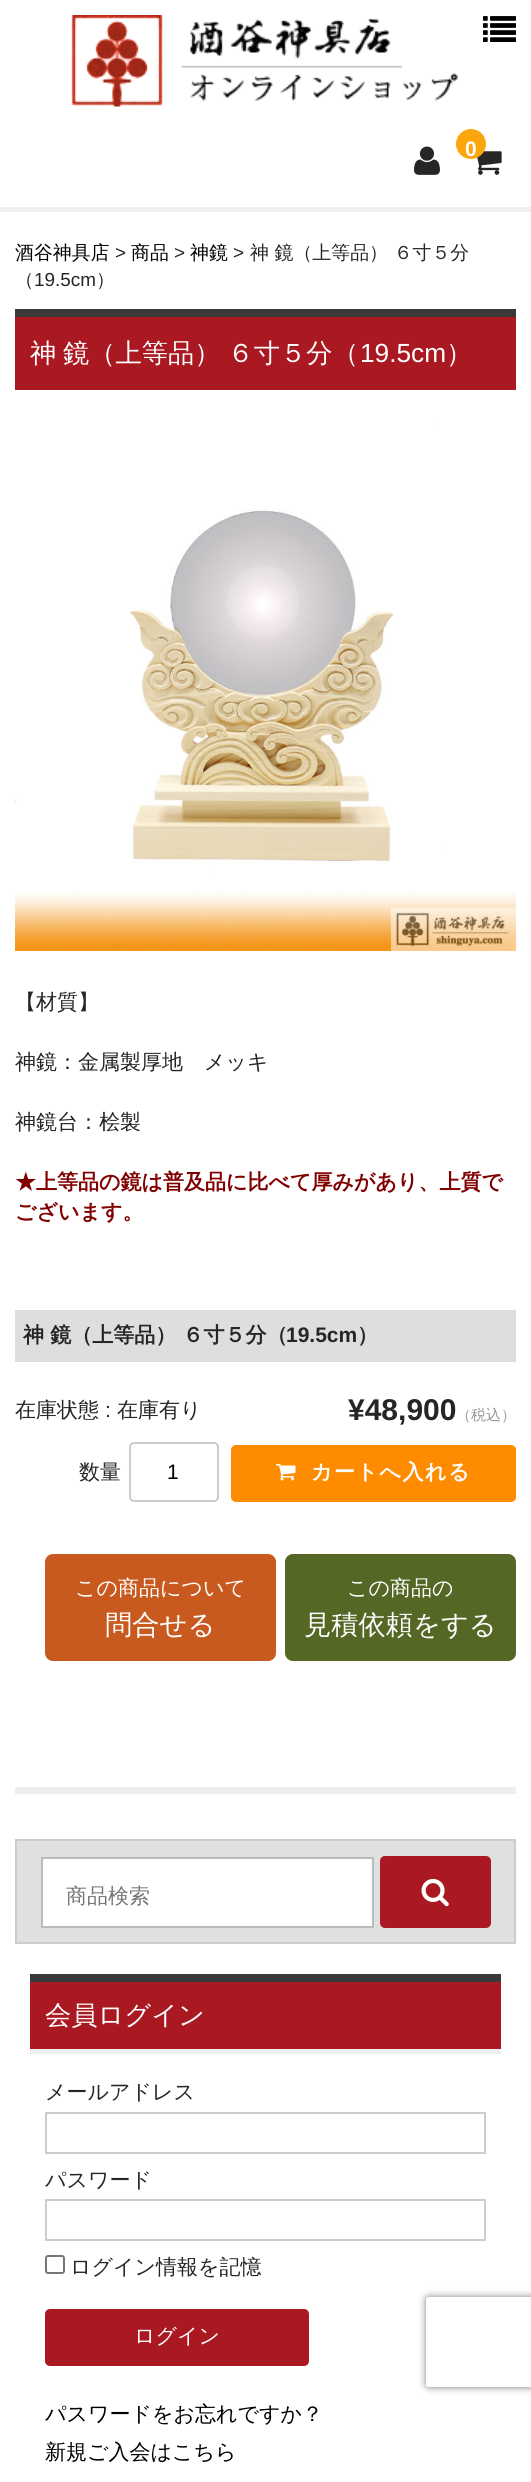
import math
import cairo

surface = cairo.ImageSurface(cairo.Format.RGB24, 531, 2482)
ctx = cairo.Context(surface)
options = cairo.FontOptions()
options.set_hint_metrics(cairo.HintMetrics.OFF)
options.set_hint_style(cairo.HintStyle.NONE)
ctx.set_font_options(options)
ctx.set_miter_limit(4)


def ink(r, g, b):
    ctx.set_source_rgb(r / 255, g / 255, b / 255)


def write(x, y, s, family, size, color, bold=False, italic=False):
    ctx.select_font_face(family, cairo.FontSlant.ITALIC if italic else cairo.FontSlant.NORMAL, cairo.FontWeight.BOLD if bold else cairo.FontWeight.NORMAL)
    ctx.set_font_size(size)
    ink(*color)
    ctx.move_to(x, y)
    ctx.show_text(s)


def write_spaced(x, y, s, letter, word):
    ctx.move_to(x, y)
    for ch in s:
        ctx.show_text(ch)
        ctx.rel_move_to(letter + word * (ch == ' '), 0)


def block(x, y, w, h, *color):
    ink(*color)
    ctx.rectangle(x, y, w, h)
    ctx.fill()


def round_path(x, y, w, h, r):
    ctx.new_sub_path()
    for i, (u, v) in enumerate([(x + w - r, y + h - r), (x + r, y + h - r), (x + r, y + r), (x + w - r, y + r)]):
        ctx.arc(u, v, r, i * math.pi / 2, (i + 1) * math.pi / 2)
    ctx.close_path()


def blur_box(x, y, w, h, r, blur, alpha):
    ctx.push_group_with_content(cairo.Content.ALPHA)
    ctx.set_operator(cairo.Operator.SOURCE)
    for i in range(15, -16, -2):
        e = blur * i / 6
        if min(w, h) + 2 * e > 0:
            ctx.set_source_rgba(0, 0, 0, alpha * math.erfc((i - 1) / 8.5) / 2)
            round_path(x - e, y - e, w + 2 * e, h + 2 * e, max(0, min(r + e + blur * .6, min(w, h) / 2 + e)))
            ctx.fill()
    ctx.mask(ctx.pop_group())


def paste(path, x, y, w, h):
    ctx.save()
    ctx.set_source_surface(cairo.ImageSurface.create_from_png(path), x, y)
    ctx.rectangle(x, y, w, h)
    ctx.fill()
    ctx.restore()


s1 = dict(family="Liberation Sans", size=21, color=(255, 255, 255), bold=True)
s2 = dict(family="WenQuanYi Zen Hei Medium", size=18.9, color=(0, 0, 0))
s3 = dict(family="Liberation Sans", size=18.9, color=(38, 38, 38))
s4 = dict(family="WenQuanYi Zen Hei Medium", size=18.9, color=(38, 38, 38))
s5 = dict(family="Liberation Sans", size=26.25, color=(255, 255, 255))
s6 = dict(family="WenQuanYi Zen Hei Medium", size=26.25, color=(255, 255, 255))
s7 = dict(family="WenQuanYi Zen Hei Medium", size=21, color=(38, 38, 38))
s8 = dict(family="WenQuanYi Zen Hei", size=21, color=(128, 0, 0), bold=True)
s9 = dict(family="WenQuanYi Zen Hei", size=21, color=(38, 38, 38), bold=True)
s10 = dict(family="Liberation Sans", size=21, color=(38, 38, 38), bold=True)
s11 = dict(family="Liberation Sans", size=21, color=(38, 38, 38))
s12 = dict(family="Liberation Sans", size=30, color=(38, 38, 38), bold=True)
s13 = dict(family="WenQuanYi Zen Hei Medium", size=15, color=(153, 153, 153))
s14 = dict(family="Liberation Sans", size=21, color=(0, 0, 0))
s15 = dict(family="WenQuanYi Zen Hei Medium", size=21, color=(255, 255, 255))
s16 = dict(family="WenQuanYi Zen Hei Medium", size=27.25, color=(255, 255, 255))
s17 = dict(family="WenQuanYi Zen Hei Medium", size=21, color=(117, 117, 117))
s18 = dict(family="WenQuanYi Zen Hei Medium", size=21, color=(0, 0, 0))

ink(255, 255, 255)
ctx.paint()
block(0, 207, 531, 5, 239, 239, 239)
paste("pic1.png", 71, 15, 387, 92)
paste("pic2.png", 483, 16, 33, 26)
paste("pic3.png", 414, 146, 26, 29)
paste("pic4.png", 477, 151, 25, 24)
ink(251, 166, 13)
ctx.arc(471, 144, 15, 0, 2 * math.pi)
ctx.fill()
write(465, 156, "0", **s1)
write(15, 259, "酒谷神具店", **s2)
write(115, 259, ">", **s3)
write(131, 259, "商品", **s2)
write(174, 259, ">", **s3)
write(190, 259, "神鏡", **s2)
write(233, 259, ">", **s3)
write(250, 259, "神 鏡（上等品） ６寸５分", **s4)
write(15, 286, "（", **s4)
write(34, 286, "19.5cm", **s3)
write(96, 286, "）", **s4)
block(15, 317, 501, 73, 170, 25, 34)
block(15, 309, 501, 8, 57, 57, 57)
ctx.set_font_size(26.25)
ink(255, 255, 255)
write_spaced(30, 362, "神 鏡（上等品） ６寸５分（", 0, -1)
write(360, 362, "19.5cm", **s5)
write(446, 362, "）", **s6)
paste("pic5.png", 15, 421, 501, 530)
write(15, 1009, "【材質】", **s7)
write(15, 1069, "神鏡：金属製厚地　メッキ", **s7)
write(15, 1129, "神鏡台：桧製", **s7)
write(15, 1189, "★上等品の鏡は普及品に比べて厚みがあり、上質で", **s8)
write(15, 1219, "ございます。", **s8)
block(15, 1310, 501, 52, 222, 222, 222)
write(23, 1342, "神 鏡（上等品） ６寸５分（", **s9)
write(286, 1342, "19.5cm", **s10)
write(357, 1342, "）", **s9)
write(15, 1417, "在庫状態", **s7)
write(105, 1417, ":", **s11)
write(117, 1417, "在庫有り", **s7)
write(348, 1420, "¥48,900", **s12)
write(456, 1420, "（税込）", **s13)
write(79, 1479, "数量", **s7)
round_path(130, 1443, 88, 58, 4)
ink(204, 204, 204)
ctx.stroke()
write(167, 1479, "1", **s14)
ink(255, 140, 0)
round_path(231, 1445, 285, 57, 5)
ctx.fill()
paste("pic6.png", 276, 1464, 20, 17)
ctx.select_font_face("WenQuanYi Zen Hei", cairo.FontSlant.NORMAL, cairo.FontWeight.BOLD)
ink(255, 255, 255)
write_spaced(311, 1479, "カートへ入れる", 1.5, 0)
ink(201, 90, 31)
round_path(45, 1554, 231, 107, 8)
ctx.fill()
write(75, 1595, "この商品について", **s15)
write(105, 1634, "問合せる", **s16)
ink(85, 103, 37)
round_path(285, 1554, 231, 107, 8)
ctx.fill()
write(347, 1595, "この商品の", **s15)
write(304, 1634, "見積依頼をする", **s16)
block(15, 1787, 501, 7, 238, 238, 238)
ink(224, 224, 224)
ctx.rectangle(16, 1840, 499, 103)
ctx.fill_preserve()
ink(204, 204, 204)
ctx.stroke()
ink(255, 255, 255)
ctx.rectangle(42, 1858, 331, 69)
ctx.fill_preserve()
ink(187, 187, 187)
ctx.stroke()
write(66, 1903, "商品検索", **s17)
ink(170, 25, 34)
round_path(380, 1856, 111, 72, 5)
ctx.fill()
paste("pic7.png", 421, 1878, 28, 29)
block(30, 1982, 471, 67, 170, 25, 34)
block(30, 1974, 471, 8, 57, 57, 57)
block(30, 2049, 471, 5, 238, 238, 238)
write(45, 2024, "会員ログイン", **s6)
write(45, 2099, "メールアドレス", **s7)
ctx.rectangle(46, 2113, 439, 40)
ink(204, 204, 204)
ctx.stroke()
write(45, 2187, "パスワード", **s7)
ctx.rectangle(46, 2200, 439, 40)
ink(204, 204, 204)
ctx.stroke()
round_path(46, 2256, 18, 17, 2)
ink(118, 118, 118)
ctx.stroke()
write(70, 2274, "ログイン情報を記憶", **s7)
ink(170, 25, 34)
round_path(45, 2309, 264, 57, 5)
ctx.fill()
write(134, 2343, "ログイン", **s15)
write(45, 2421, "パスワードをお忘れですか？", **s18)
write(45, 2459, "新規ご入会はこちら", **s18)
ctx.save()
ctx.set_fill_rule(cairo.FillRule.EVEN_ODD)
ctx.new_path()
ctx.move_to(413, 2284)
ctx.line_to(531, 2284)
ctx.line_to(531, 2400)
ctx.line_to(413, 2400)
ctx.close_path()
ctx.move_to(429, 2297)
ctx.line_to(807, 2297)
ctx.curve_to(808.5, 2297, 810, 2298.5, 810, 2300)
ctx.line_to(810, 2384)
ctx.curve_to(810, 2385.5, 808.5, 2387, 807, 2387)
ctx.line_to(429, 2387)
ctx.curve_to(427.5, 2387, 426, 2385.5, 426, 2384)
ctx.line_to(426, 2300)
ctx.curve_to(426, 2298.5, 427.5, 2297, 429, 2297)
ctx.close_path()
ctx.clip()
ink(128, 128, 128)
blur_box(426, 2297, 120, 90, 3, 4, 1)
ctx.restore()
surface.write_to_png("screenshot.png")
